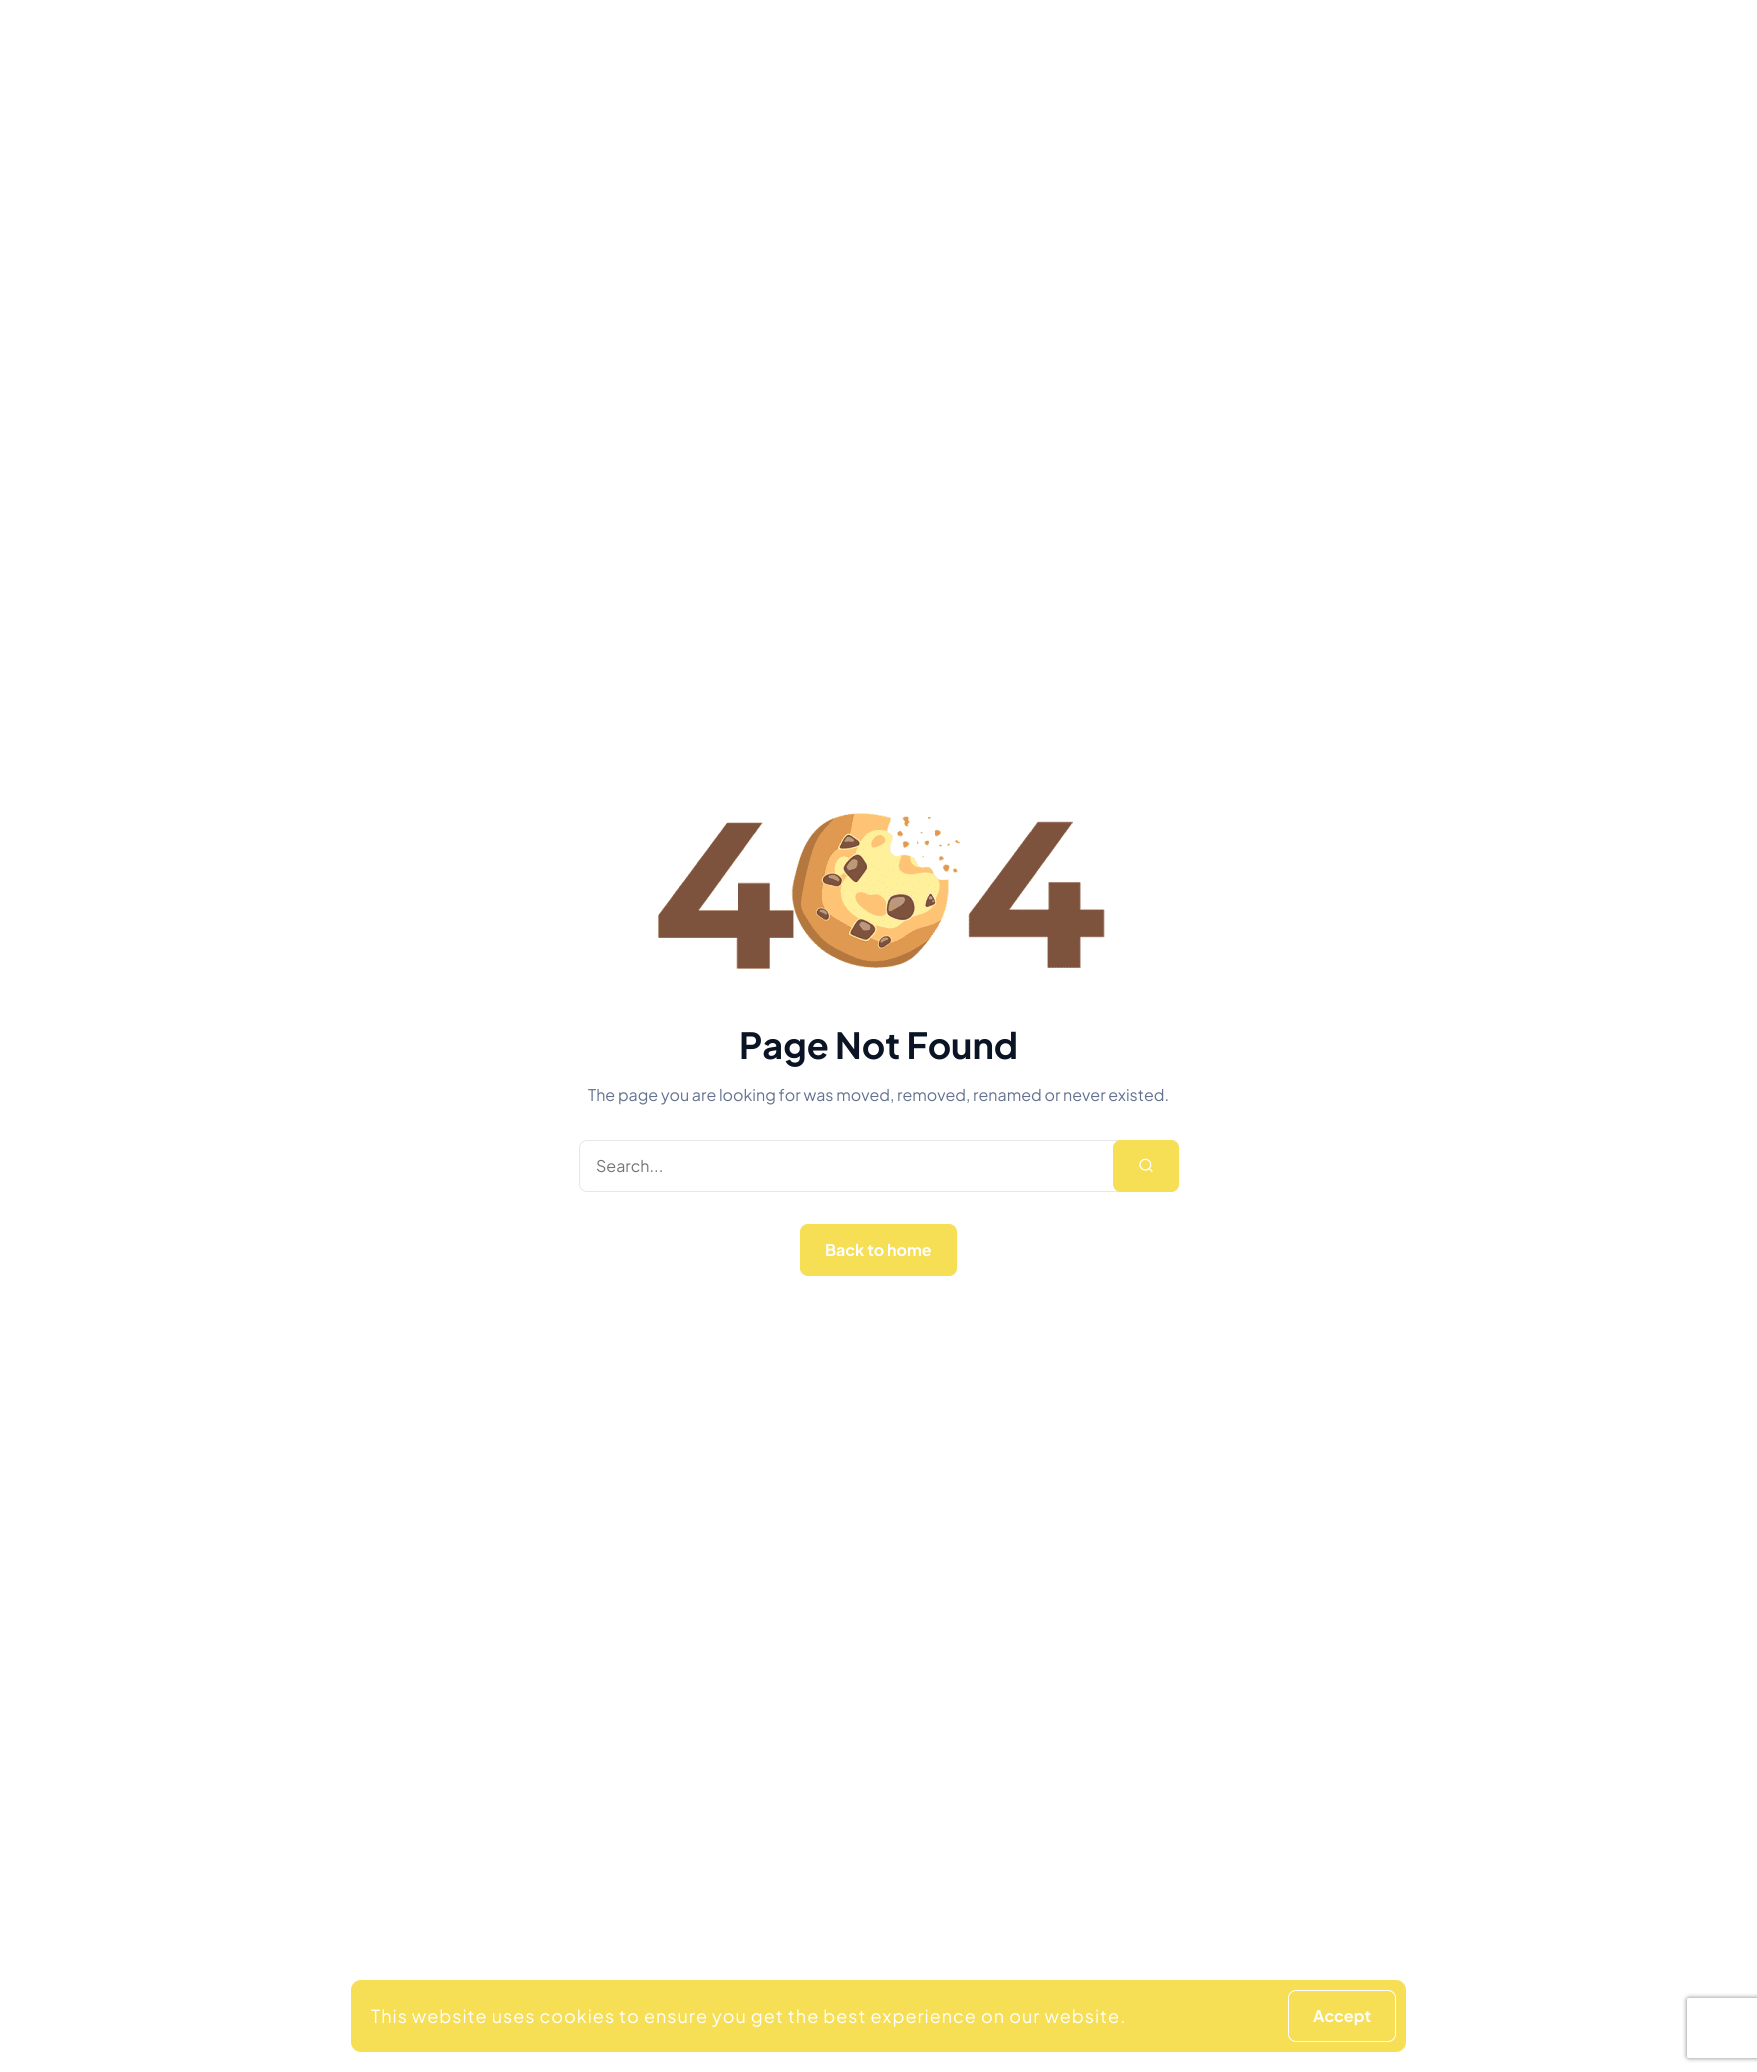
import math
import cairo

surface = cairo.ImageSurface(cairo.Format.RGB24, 1757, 2072)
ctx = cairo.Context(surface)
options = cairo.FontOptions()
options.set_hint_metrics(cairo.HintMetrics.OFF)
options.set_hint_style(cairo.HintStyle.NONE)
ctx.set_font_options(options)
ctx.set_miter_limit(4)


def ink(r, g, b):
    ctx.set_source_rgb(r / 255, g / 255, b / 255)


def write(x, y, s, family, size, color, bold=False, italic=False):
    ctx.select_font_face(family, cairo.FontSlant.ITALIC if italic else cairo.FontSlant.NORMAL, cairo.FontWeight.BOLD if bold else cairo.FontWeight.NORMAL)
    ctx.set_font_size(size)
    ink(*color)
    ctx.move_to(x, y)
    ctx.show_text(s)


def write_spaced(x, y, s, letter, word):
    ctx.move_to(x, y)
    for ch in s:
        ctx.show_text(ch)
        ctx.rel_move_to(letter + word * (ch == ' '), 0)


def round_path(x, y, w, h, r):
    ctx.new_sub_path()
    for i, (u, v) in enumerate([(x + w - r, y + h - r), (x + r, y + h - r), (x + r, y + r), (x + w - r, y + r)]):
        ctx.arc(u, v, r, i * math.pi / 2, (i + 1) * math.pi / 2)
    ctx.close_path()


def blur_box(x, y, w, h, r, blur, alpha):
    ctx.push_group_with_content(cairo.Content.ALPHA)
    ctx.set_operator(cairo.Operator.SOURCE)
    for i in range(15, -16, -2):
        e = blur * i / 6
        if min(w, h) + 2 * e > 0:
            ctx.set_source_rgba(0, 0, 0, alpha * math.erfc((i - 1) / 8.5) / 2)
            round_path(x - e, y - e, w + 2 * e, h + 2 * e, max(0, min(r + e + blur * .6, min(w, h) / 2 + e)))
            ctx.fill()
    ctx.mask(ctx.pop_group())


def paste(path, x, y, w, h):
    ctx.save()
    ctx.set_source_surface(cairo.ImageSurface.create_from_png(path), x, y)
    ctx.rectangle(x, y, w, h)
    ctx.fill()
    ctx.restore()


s1 = dict(family="Plus Jakarta Sans", size=36, color=(10, 20, 37), bold=True)
s2 = dict(family="Plus Jakarta Sans", size=16, color=(100, 114, 143))
s3 = dict(family="Plus Jakarta Sans", size=16, color=(117, 117, 117))
s4 = dict(family="Plus Jakarta Sans", size=16, color=(255, 255, 255), bold=True)

ink(255, 255, 255)
ctx.paint()
paste("pic1.png", 658, 813, 447, 156)
write(739, 1059, "Page Not Found", **s1)
write(588, 1101, "The page you are looking for was moved, removed, renamed or never existed.", **s2)
round_path(579.5, 1140.5, 599, 51, 7.5)
ink(229, 231, 235)
ctx.set_line_width(1)
ctx.stroke()
write(596, 1172, "Search...", **s3)
ink(246, 222, 85)
round_path(1113.5, 1140.5, 65, 51, 7.5)
ctx.fill_preserve()
ctx.stroke()
paste("pic2.png", 1139, 1158, 14, 14)
round_path(800.5, 1224.5, 156, 51, 7.5)
ctx.fill_preserve()
ctx.stroke()
write(825, 1256, "Back to home", **s4)
ink(246, 222, 85)
round_path(351, 1980, 1055, 72, 10)
ctx.fill()
ctx.select_font_face("Plus Jakarta Sans")
ctx.set_font_size(18)
ink(255, 255, 255)
write_spaced(371, 2023, "This website uses cookies to ensure you get the best experience on our website.", 1, 0)
round_path(1288.5, 1990.5, 107, 51, 7.5)
ctx.stroke()
write(1313, 2022, "Accept", **s4)
ctx.save()
ctx.set_fill_rule(cairo.FillRule.EVEN_ODD)
ctx.new_path()
ctx.move_to(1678, 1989)
ctx.line_to(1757, 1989)
ctx.line_to(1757, 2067)
ctx.line_to(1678, 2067)
ctx.close_path()
ctx.move_to(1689, 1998)
ctx.line_to(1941, 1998)
ctx.curve_to(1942, 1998, 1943, 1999, 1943, 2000)
ctx.line_to(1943, 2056)
ctx.curve_to(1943, 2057, 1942, 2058, 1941, 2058)
ctx.line_to(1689, 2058)
ctx.curve_to(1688, 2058, 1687, 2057, 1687, 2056)
ctx.line_to(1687, 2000)
ctx.curve_to(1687, 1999, 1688, 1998, 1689, 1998)
ctx.close_path()
ctx.clip()
ink(128, 128, 128)
blur_box(1687, 1998, 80, 60, 2, 2.5, 1)
ctx.restore()
surface.write_to_png("screenshot.png")
